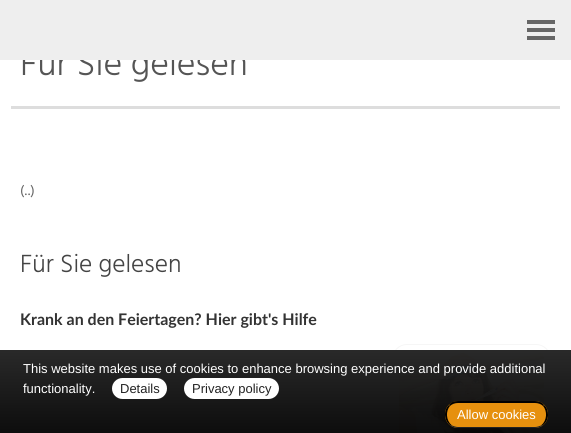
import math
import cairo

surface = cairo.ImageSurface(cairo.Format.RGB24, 571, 433)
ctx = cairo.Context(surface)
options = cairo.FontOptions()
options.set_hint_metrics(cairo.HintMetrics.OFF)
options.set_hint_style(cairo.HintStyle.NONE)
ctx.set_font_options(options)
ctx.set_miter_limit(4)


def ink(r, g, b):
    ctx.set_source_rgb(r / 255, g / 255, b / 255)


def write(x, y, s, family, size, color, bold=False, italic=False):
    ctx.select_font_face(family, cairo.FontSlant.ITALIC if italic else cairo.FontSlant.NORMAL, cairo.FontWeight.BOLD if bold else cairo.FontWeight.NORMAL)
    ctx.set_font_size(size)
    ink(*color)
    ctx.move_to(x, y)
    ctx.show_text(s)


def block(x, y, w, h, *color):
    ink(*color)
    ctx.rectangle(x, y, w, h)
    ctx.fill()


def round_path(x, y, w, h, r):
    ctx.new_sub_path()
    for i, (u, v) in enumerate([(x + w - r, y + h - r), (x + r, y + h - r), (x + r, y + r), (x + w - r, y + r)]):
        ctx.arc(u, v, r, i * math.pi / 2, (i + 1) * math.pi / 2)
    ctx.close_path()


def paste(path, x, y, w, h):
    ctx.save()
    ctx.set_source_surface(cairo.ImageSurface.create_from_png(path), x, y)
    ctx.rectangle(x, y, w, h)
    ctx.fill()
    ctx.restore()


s1 = dict(family="Hind Light", size=36, color=(85, 85, 85))
s2 = dict(family="Ubuntu", size=13, color=(102, 102, 102))
s3 = dict(family="Hind Light", size=25.5, color=(68, 68, 68))
s4 = dict(family="Lato", size=16, color=(51, 51, 51), bold=True)
s5 = dict(family="Liberation Sans", size=13, color=(255, 255, 255))
s6 = dict(family="Liberation Sans", size=13, color=(34, 34, 34))

ink(255, 255, 255)
ctx.paint()
write(20, 75, "Für Sie gelesen", **s1)
block(0, 0, 571, 60, 238, 238, 238)
block(527, 20, 28, 4, 102, 102, 102)
block(527, 28, 28, 4, 102, 102, 102)
block(527, 36, 28, 4, 102, 102, 102)
block(11, 106, 549, 3, 221, 221, 221)
write(20, 195, "(..)", **s2)
write(20, 272, "Für Sie gelesen", **s3)
write(20, 325, "Krank an den Feiertagen? Hier gibt's Hilfe", **s4)
ctx.new_path()
ctx.move_to(407, 344.5)
ctx.line_to(536, 344.5)
ctx.curve_to(544, 344.5, 550.5, 351, 550.5, 359)
ctx.line_to(550.5, 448.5)
ctx.line_to(407, 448.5)
ctx.curve_to(399, 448.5, 392.5, 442, 392.5, 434)
ctx.line_to(392.5, 359)
ctx.curve_to(392.5, 351, 399, 344.5, 407, 344.5)
ctx.close_path()
ink(246, 246, 246)
ctx.set_line_width(1)
ctx.stroke()
paste("pic1.png", 399, 351, 145, 82)
gradient = cairo.LinearGradient(286, 350, 286, 433)
gradient.add_color_stop_rgba(0, 0.118, 0.118, 0.118, 0.95)
gradient.add_color_stop_rgba(1, 0, 0, 0, 0.95)
ctx.set_source(gradient)
ctx.rectangle(0, 350, 571, 83)
ctx.fill()
write(23, 373, "This website makes use of cookies to enhance browsing experience and provide additional", **s5)
write(23, 393, "functionality.", **s5)
round_path(112, 378, 55, 21, 10.5)
ctx.fill()
write(120, 393, "Details", **s6)
ink(255, 255, 255)
round_path(184, 378, 95, 21, 10.5)
ctx.fill()
write(192, 393, "Privacy policy", **s6)
ink(230, 144, 14)
round_path(445, 401, 103, 27, 13)
ctx.fill()
ink(0, 0, 0)
ctx.new_path()
ctx.move_to(458, 401)
ctx.curve_to(454, 401, 451, 402, 449, 405)
ctx.line_to(450, 406)
ctx.curve_to(452, 404, 455, 403, 458, 403)
ctx.line_to(535, 403)
ctx.curve_to(538, 403, 541, 404, 543, 406)
ctx.line_to(544, 405)
ctx.curve_to(542, 402, 538, 401, 535, 401)
ctx.close_path()
ctx.fill()
ctx.new_path()
ctx.move_to(548, 415)
ctx.curve_to(548, 411, 547, 407.5, 544, 405)
ctx.line_to(543, 406)
ctx.curve_to(547.5, 411, 547, 420.5, 541.5, 425)
ctx.line_to(542.5, 425.5)
ctx.curve_to(546, 423, 548, 419, 548, 415)
ctx.close_path()
ctx.fill()
ink(34, 34, 34)
ctx.new_path()
ctx.move_to(458, 428)
ctx.line_to(535, 428)
ctx.curve_to(538, 428, 541, 427, 543, 425)
ctx.line_to(542, 425)
ctx.curve_to(540, 426, 537, 427, 535, 427)
ctx.line_to(458, 427)
ctx.curve_to(456, 427, 453, 426, 451, 425)
ctx.line_to(450, 425)
ctx.curve_to(452, 427, 455, 428, 458, 428)
ctx.close_path()
ctx.fill()
ink(0, 0, 0)
ctx.new_path()
ctx.move_to(445, 414)
ctx.curve_to(445, 418.5, 446.5, 422.5, 450.5, 425.5)
ctx.line_to(451.5, 425)
ctx.curve_to(446, 420.5, 445.5, 411, 450, 406)
ctx.line_to(449, 405)
ctx.curve_to(446.5, 407, 445, 410.5, 445, 414)
ctx.close_path()
ctx.fill()
write(457, 419, "Allow cookies", **s5)
surface.write_to_png("screenshot.png")
